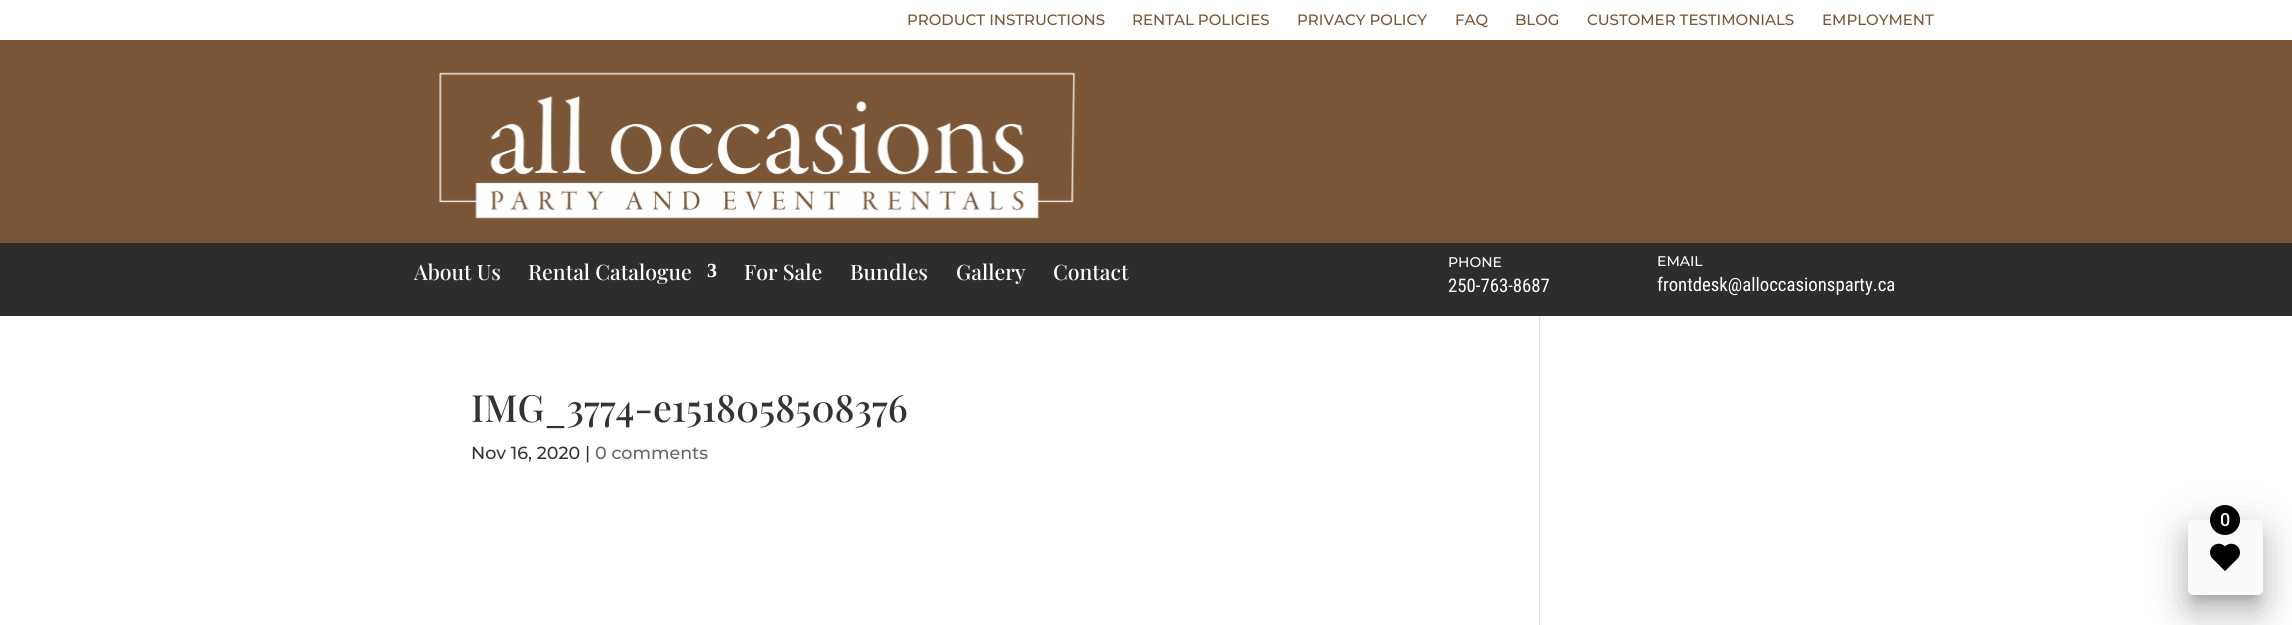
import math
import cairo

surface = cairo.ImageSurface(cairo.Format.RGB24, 2292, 625)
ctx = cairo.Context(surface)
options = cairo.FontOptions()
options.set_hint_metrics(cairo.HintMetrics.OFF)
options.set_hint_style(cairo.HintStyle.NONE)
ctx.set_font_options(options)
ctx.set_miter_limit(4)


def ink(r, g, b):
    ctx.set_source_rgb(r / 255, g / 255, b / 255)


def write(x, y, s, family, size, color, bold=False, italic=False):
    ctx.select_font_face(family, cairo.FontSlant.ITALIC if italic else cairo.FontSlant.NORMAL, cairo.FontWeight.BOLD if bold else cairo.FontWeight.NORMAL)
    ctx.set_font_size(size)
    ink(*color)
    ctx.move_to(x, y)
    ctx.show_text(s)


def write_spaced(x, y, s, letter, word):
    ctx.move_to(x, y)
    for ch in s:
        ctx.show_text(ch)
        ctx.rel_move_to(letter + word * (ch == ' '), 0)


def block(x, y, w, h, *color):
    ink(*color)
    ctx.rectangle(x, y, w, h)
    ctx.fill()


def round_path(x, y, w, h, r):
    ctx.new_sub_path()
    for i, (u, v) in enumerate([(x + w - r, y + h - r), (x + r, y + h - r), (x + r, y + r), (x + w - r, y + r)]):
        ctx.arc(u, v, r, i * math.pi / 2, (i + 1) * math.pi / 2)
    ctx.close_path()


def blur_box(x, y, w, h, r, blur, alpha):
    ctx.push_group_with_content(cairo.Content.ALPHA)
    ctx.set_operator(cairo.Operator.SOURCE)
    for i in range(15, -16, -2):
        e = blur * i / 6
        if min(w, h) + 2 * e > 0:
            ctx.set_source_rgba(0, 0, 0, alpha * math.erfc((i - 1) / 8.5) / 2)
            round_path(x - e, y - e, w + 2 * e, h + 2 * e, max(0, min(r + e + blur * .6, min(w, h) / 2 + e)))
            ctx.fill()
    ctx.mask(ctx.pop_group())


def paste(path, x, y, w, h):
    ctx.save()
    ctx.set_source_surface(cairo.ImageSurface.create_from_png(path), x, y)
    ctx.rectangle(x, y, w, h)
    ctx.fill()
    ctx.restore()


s1 = dict(family="Montserrat Medium", size=15, color=(122, 86, 54))
s2 = dict(family="Playfair Display Medium", size=21.25, color=(255, 255, 255))
s3 = dict(family="Liberation Serif", size=20, color=(255, 255, 255), bold=True)
s4 = dict(family="Montserrat Medium", size=14, color=(255, 255, 255))
s5 = dict(family="Roboto Condensed", size=18.75, color=(255, 255, 255))
s6 = dict(family="Playfair Display Medium", size=37.5, color=(51, 51, 51))
s7 = dict(family="Montserrat Medium", size=17.5, color=(51, 51, 51))
s8 = dict(family="Montserrat Medium", size=17.5, color=(102, 102, 102))

ink(255, 255, 255)
ctx.paint()
write(907, 25, "PRODUCT INSTRUCTIONS", **s1)
write(1132, 25, "RENTAL POLICIES", **s1)
write(1297, 25, "PRIVACY POLICY", **s1)
write(1455, 25, "FAQ", **s1)
write(1515, 25, "BLOG", **s1)
write(1587, 25, "CUSTOMER TESTIMONIALS", **s1)
write(1822, 25, "EMPLOYMENT", **s1)
block(0, 40, 2292, 203, 122, 86, 54)
paste("pic1.png", 439, 72, 637, 147)
block(0, 243, 2292, 73, 45, 45, 45)
write(414, 280, "About Us", **s2)
write(528, 280, "Rental Catalogue", **s2)
write(707, 277, "3", **s3)
write(744, 280, "For Sale", **s2)
write(850, 280, "Bundles", **s2)
write(956, 280, "Gallery", **s2)
write(1053, 280, "Contact", **s2)
write(1448, 267, "PHONE", **s4)
write(1448, 292, "250-763-8687", **s5)
write(1657, 266, "EMAIL", **s4)
write(1657, 291, "frontdesk@alloccasionsparty.ca", **s5)
write(471, 422, "IMG_3774-e1518058508376", **s6)
write(471, 459, "Nov 16, 2020 |", **s7)
write(595, 459, "0 comments", **s8)
block(1539, 316, 1, 309, 226, 226, 226)
ink(0, 0, 0)
blur_box(2194, 536, 62, 63, 0, 6, 0.2)
blur_box(2181, 521, 88, 88, 11, 19, 0.12)
blur_box(2185, 538, 80, 80, 8, 15, 0.14)
ink(250, 250, 250)
round_path(2188, 520, 75, 75, 5)
ctx.fill()
ink(0, 0, 0)
ctx.arc(2225, 520, 15, 0, 2 * math.pi)
ctx.fill()
ctx.select_font_face("Roboto Medium")
ctx.set_font_size(18)
ink(255, 255, 255)
write_spaced(2220, 526, "0", -1, 0)
paste("pic2.png", 2210, 543, 30, 28)
surface.write_to_png("screenshot.png")
